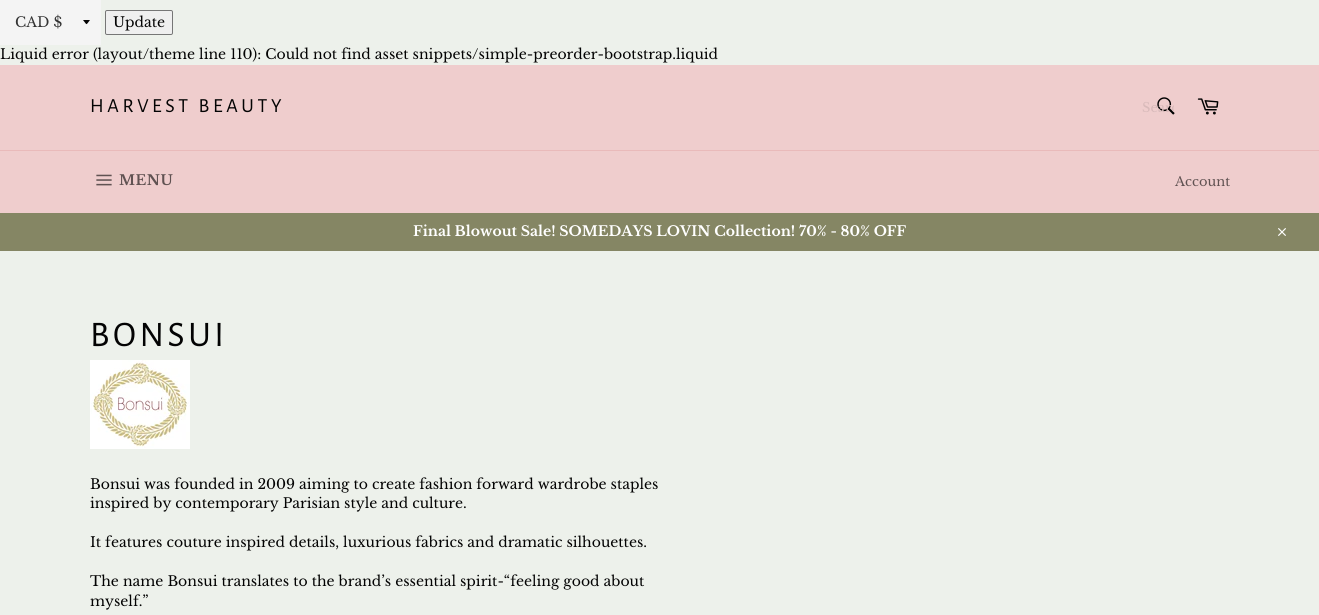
import math
import cairo

surface = cairo.ImageSurface(cairo.Format.RGB24, 1319, 615)
ctx = cairo.Context(surface)
options = cairo.FontOptions()
options.set_hint_metrics(cairo.HintMetrics.OFF)
options.set_hint_style(cairo.HintStyle.NONE)
ctx.set_font_options(options)
ctx.set_miter_limit(4)


def ink(r, g, b):
    ctx.set_source_rgb(r / 255, g / 255, b / 255)


def write(x, y, s, family, size, color, bold=False, italic=False):
    ctx.select_font_face(family, cairo.FontSlant.ITALIC if italic else cairo.FontSlant.NORMAL, cairo.FontWeight.BOLD if bold else cairo.FontWeight.NORMAL)
    ctx.set_font_size(size)
    ink(*color)
    ctx.move_to(x, y)
    ctx.show_text(s)


def write_spaced(x, y, s, letter, word):
    ctx.move_to(x, y)
    for ch in s:
        ctx.show_text(ch)
        ctx.rel_move_to(letter + word * (ch == ' '), 0)


def block(x, y, w, h, *color):
    ink(*color)
    ctx.rectangle(x, y, w, h)
    ctx.fill()


def round_path(x, y, w, h, r):
    ctx.new_sub_path()
    for i, (u, v) in enumerate([(x + w - r, y + h - r), (x + r, y + h - r), (x + r, y + r), (x + w - r, y + r)]):
        ctx.arc(u, v, r, i * math.pi / 2, (i + 1) * math.pi / 2)
    ctx.close_path()


def paste(path, x, y, w, h):
    ctx.save()
    ctx.set_source_surface(cairo.ImageSurface.create_from_png(path), x, y)
    ctx.rectangle(x, y, w, h)
    ctx.fill()
    ctx.restore()


s1 = dict(family="Libre Baskerville", size=14, color=(51, 51, 51))
s2 = dict(family="Libre Baskerville", size=14, color=(3, 3, 3))
s3 = dict(family="Libre Baskerville", size=13, color=(216, 186, 186))
s4 = dict(family="Libre Baskerville", size=13, color=(96, 82, 82))
s5 = dict(family="Libre Baskerville", size=14, color=(255, 255, 255), bold=True)

ink(237, 241, 235)
ctx.paint()
block(0, 0, 101, 45, 244, 244, 244)
ink(3, 3, 3)
ctx.new_path()
ctx.move_to(83, 20)
ctx.curve_to(87.5, 25.5, 85.5, 25.5, 90, 20)
ctx.close_path()
ctx.fill()
write(15, 27, "CAD $", **s1)
ink(239, 239, 239)
round_path(105.5, 10.5, 67, 24, 1.5)
ctx.fill_preserve()
ink(118, 118, 118)
ctx.set_line_width(1)
ctx.stroke()
write(113, 27, "Update", **s2)
write(0, 59, "Liquid error (layout/theme line 110): Could not find asset snippets/simple-preorder-bootstrap.liquid", **s2)
block(0, 65, 1319, 85, 239, 205, 205)
ctx.select_font_face("Alegreya Sans")
ctx.set_font_size(20)
ink(3, 3, 3)
write_spaced(90, 112, "HARVEST BEAUTY", 3.6, 0)
paste("pic1.png", 1157, 97, 18, 18)
ctx.save()
ctx.rectangle(1142, 99, 32, 17)
ctx.clip()
write(1142, 112, "Searc", **s3)
ctx.restore()
paste("pic2.png", 1197, 98, 22, 17)
block(0, 151, 1319, 62, 239, 205, 205)
block(0, 150, 1319, 1, 233, 186, 186)
paste("pic3.png", 96, 174, 16, 12)
ctx.select_font_face("Libre Baskerville", cairo.FontSlant.NORMAL, cairo.FontWeight.BOLD)
ctx.set_font_size(14)
ink(96, 82, 82)
write_spaced(119, 185, "MENU", 0.5, 0)
write(1175, 186, "Account", **s4)
block(0, 213, 1319, 38, 133, 134, 100)
write(413, 236, "Final Blowout Sale! SOMEDAYS LOVIN Collection! 70% - 80% OFF", **s5)
paste("pic4.png", 1278, 228, 8, 8)
ctx.select_font_face("Alegreya Sans")
ctx.set_font_size(36)
ink(3, 3, 3)
write_spaced(90, 346, "BONSUI", 3.6, 0)
paste("pic5.png", 90, 360, 100, 89)
write(90, 489, "Bonsui was founded in 2009 aiming to create fashion forward wardrobe staples", **s2)
write(90, 508, "inspired by contemporary Parisian style and culture.", **s2)
write(90, 547, "It features couture inspired details, luxurious fabrics and dramatic silhouettes.", **s2)
write(90, 586, "The name Bonsui translates to the brand’s essential spirit-“feeling good about", **s2)
write(90, 606, "myself.”", **s2)
surface.write_to_png("screenshot.png")
